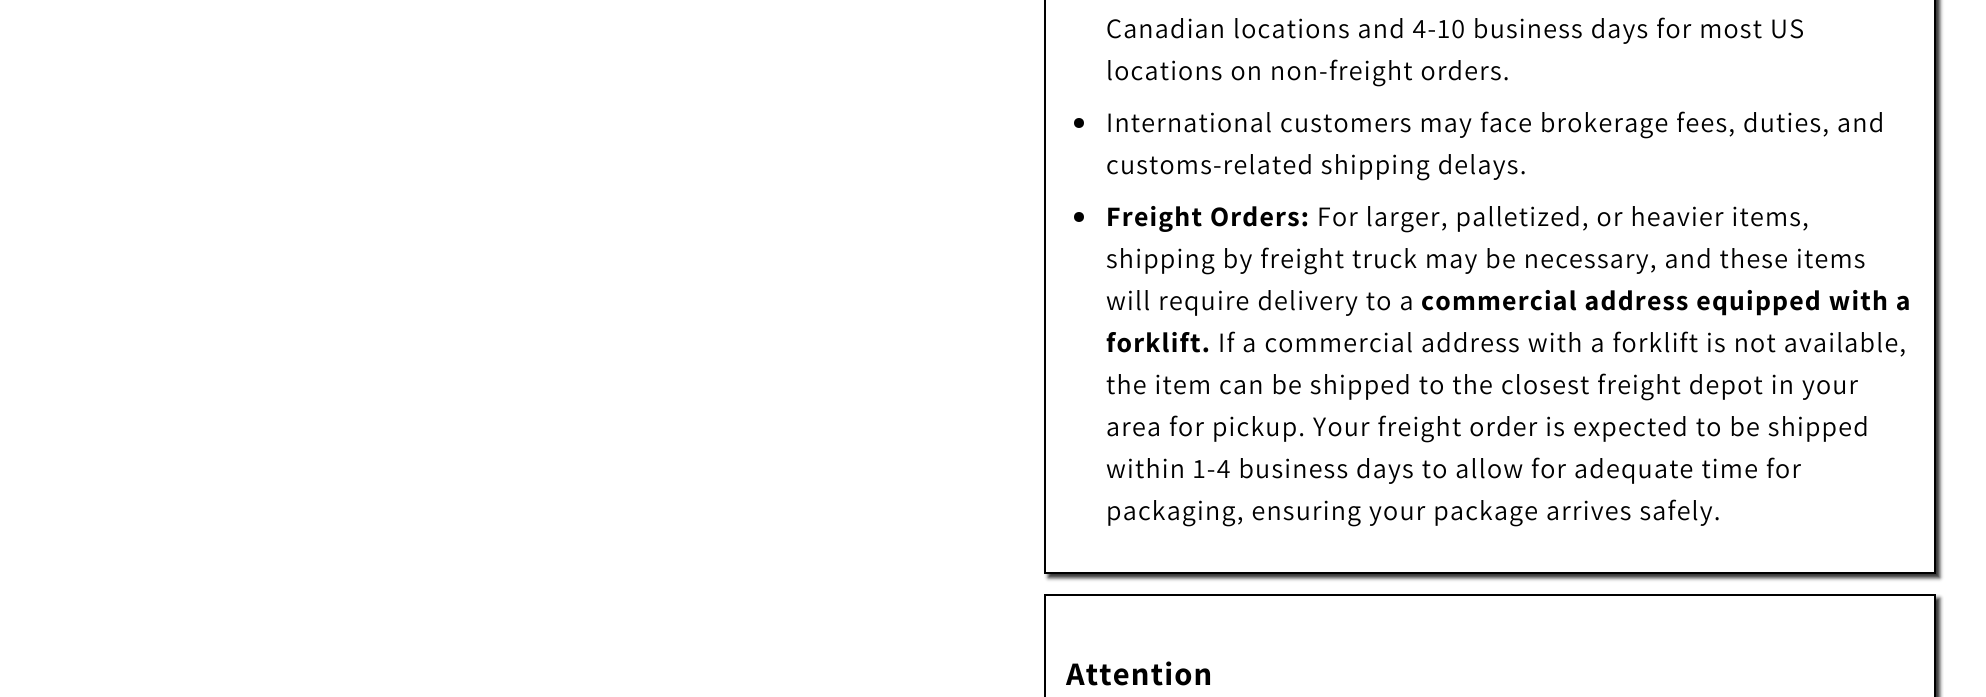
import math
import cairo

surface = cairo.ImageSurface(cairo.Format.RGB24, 1986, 697)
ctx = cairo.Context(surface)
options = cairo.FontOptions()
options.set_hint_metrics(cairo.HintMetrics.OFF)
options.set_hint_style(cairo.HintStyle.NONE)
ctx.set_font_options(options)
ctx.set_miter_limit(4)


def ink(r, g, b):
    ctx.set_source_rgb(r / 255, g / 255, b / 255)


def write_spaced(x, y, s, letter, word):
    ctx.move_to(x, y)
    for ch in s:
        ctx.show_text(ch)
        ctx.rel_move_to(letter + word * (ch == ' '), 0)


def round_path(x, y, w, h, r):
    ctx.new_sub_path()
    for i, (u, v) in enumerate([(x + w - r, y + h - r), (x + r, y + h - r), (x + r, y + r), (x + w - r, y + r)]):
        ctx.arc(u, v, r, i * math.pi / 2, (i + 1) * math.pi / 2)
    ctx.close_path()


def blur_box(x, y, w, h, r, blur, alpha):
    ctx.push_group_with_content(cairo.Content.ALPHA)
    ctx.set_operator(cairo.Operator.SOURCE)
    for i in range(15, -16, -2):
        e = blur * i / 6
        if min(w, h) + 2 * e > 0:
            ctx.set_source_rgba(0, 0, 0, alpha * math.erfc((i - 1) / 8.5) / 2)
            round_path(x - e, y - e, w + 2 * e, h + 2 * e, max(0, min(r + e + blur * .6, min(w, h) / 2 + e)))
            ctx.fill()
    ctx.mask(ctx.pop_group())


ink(255, 255, 255)
ctx.paint()
ctx.save()
ctx.set_fill_rule(cairo.FillRule.EVEN_ODD)
ctx.new_path()
ctx.move_to(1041, 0)
ctx.line_to(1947, 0)
ctx.line_to(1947, 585)
ctx.line_to(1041, 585)
ctx.close_path()
ctx.move_to(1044, -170)
ctx.line_to(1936, -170)
ctx.line_to(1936, 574)
ctx.line_to(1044, 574)
ctx.close_path()
ctx.clip()
ink(51, 51, 51)
blur_box(1048, -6, 892, 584, 0, 2, 1)
ctx.restore()
ctx.rectangle(1045, -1, 890, 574)
ink(0, 0, 0)
ctx.stroke()
ctx.select_font_face("Assistant")
ctx.set_font_size(28)
write_spaced(1106, 38, "Canadian locations and 4-10 business days for most US", 1.2, 0)
write_spaced(1106, 80, "locations on non-freight orders.", 1.2, 0)
ctx.new_path()
ctx.arc(1079, 123, 5, 0, 2 * math.pi)
ctx.fill()
write_spaced(1106, 132, "International customers may face brokerage fees, duties, and", 1.2, 0)
write_spaced(1106, 174, "customs-related shipping delays.", 1.2, 0)
ctx.new_path()
ctx.arc(1079, 217, 5, 0, 2 * math.pi)
ctx.fill()
ctx.select_font_face("Assistant", cairo.FontSlant.NORMAL, cairo.FontWeight.BOLD)
write_spaced(1106, 226, "Freight Orders:", 1.2, 0)
ctx.select_font_face("Assistant")
write_spaced(1317, 226, "For larger, palletized, or heavier items,", 1.2, 0)
write_spaced(1106, 268, "shipping by freight truck may be necessary, and these items", 1.2, 0)
write_spaced(1106, 310, "will require delivery to a", 1.2, 0)
ctx.select_font_face("Assistant", cairo.FontSlant.NORMAL, cairo.FontWeight.BOLD)
write_spaced(1421, 310, "commercial address equipped with a", 1.2, 0)
write_spaced(1106, 352, "forklift.", 1.2, 0)
ctx.select_font_face("Assistant")
write_spaced(1218, 352, "If a commercial address with a forklift is not available,", 1.2, 0)
write_spaced(1106, 394, "the item can be shipped to the closest freight depot in your", 1.2, 0)
write_spaced(1106, 436, "area for pickup. Your freight order is expected to be shipped", 1.2, 0)
write_spaced(1106, 478, "within 1-4 business days to allow for adequate time for", 1.2, 0)
write_spaced(1106, 520, "packaging, ensuring your package arrives safely.", 1.2, 0)
ctx.save()
ctx.rectangle(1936, 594, 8, 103)
ctx.clip()
ink(51, 51, 51)
blur_box(1048, 598, 892, 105, 0, 2, 1)
ctx.restore()
ctx.rectangle(1045, 595, 890, 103)
ctx.stroke()
ctx.select_font_face("Assistant", cairo.FontSlant.NORMAL, cairo.FontWeight.BOLD)
ctx.set_font_size(32.75)
write_spaced(1066, 685, "Attention", 1.2, 0)
surface.write_to_png("screenshot.png")
